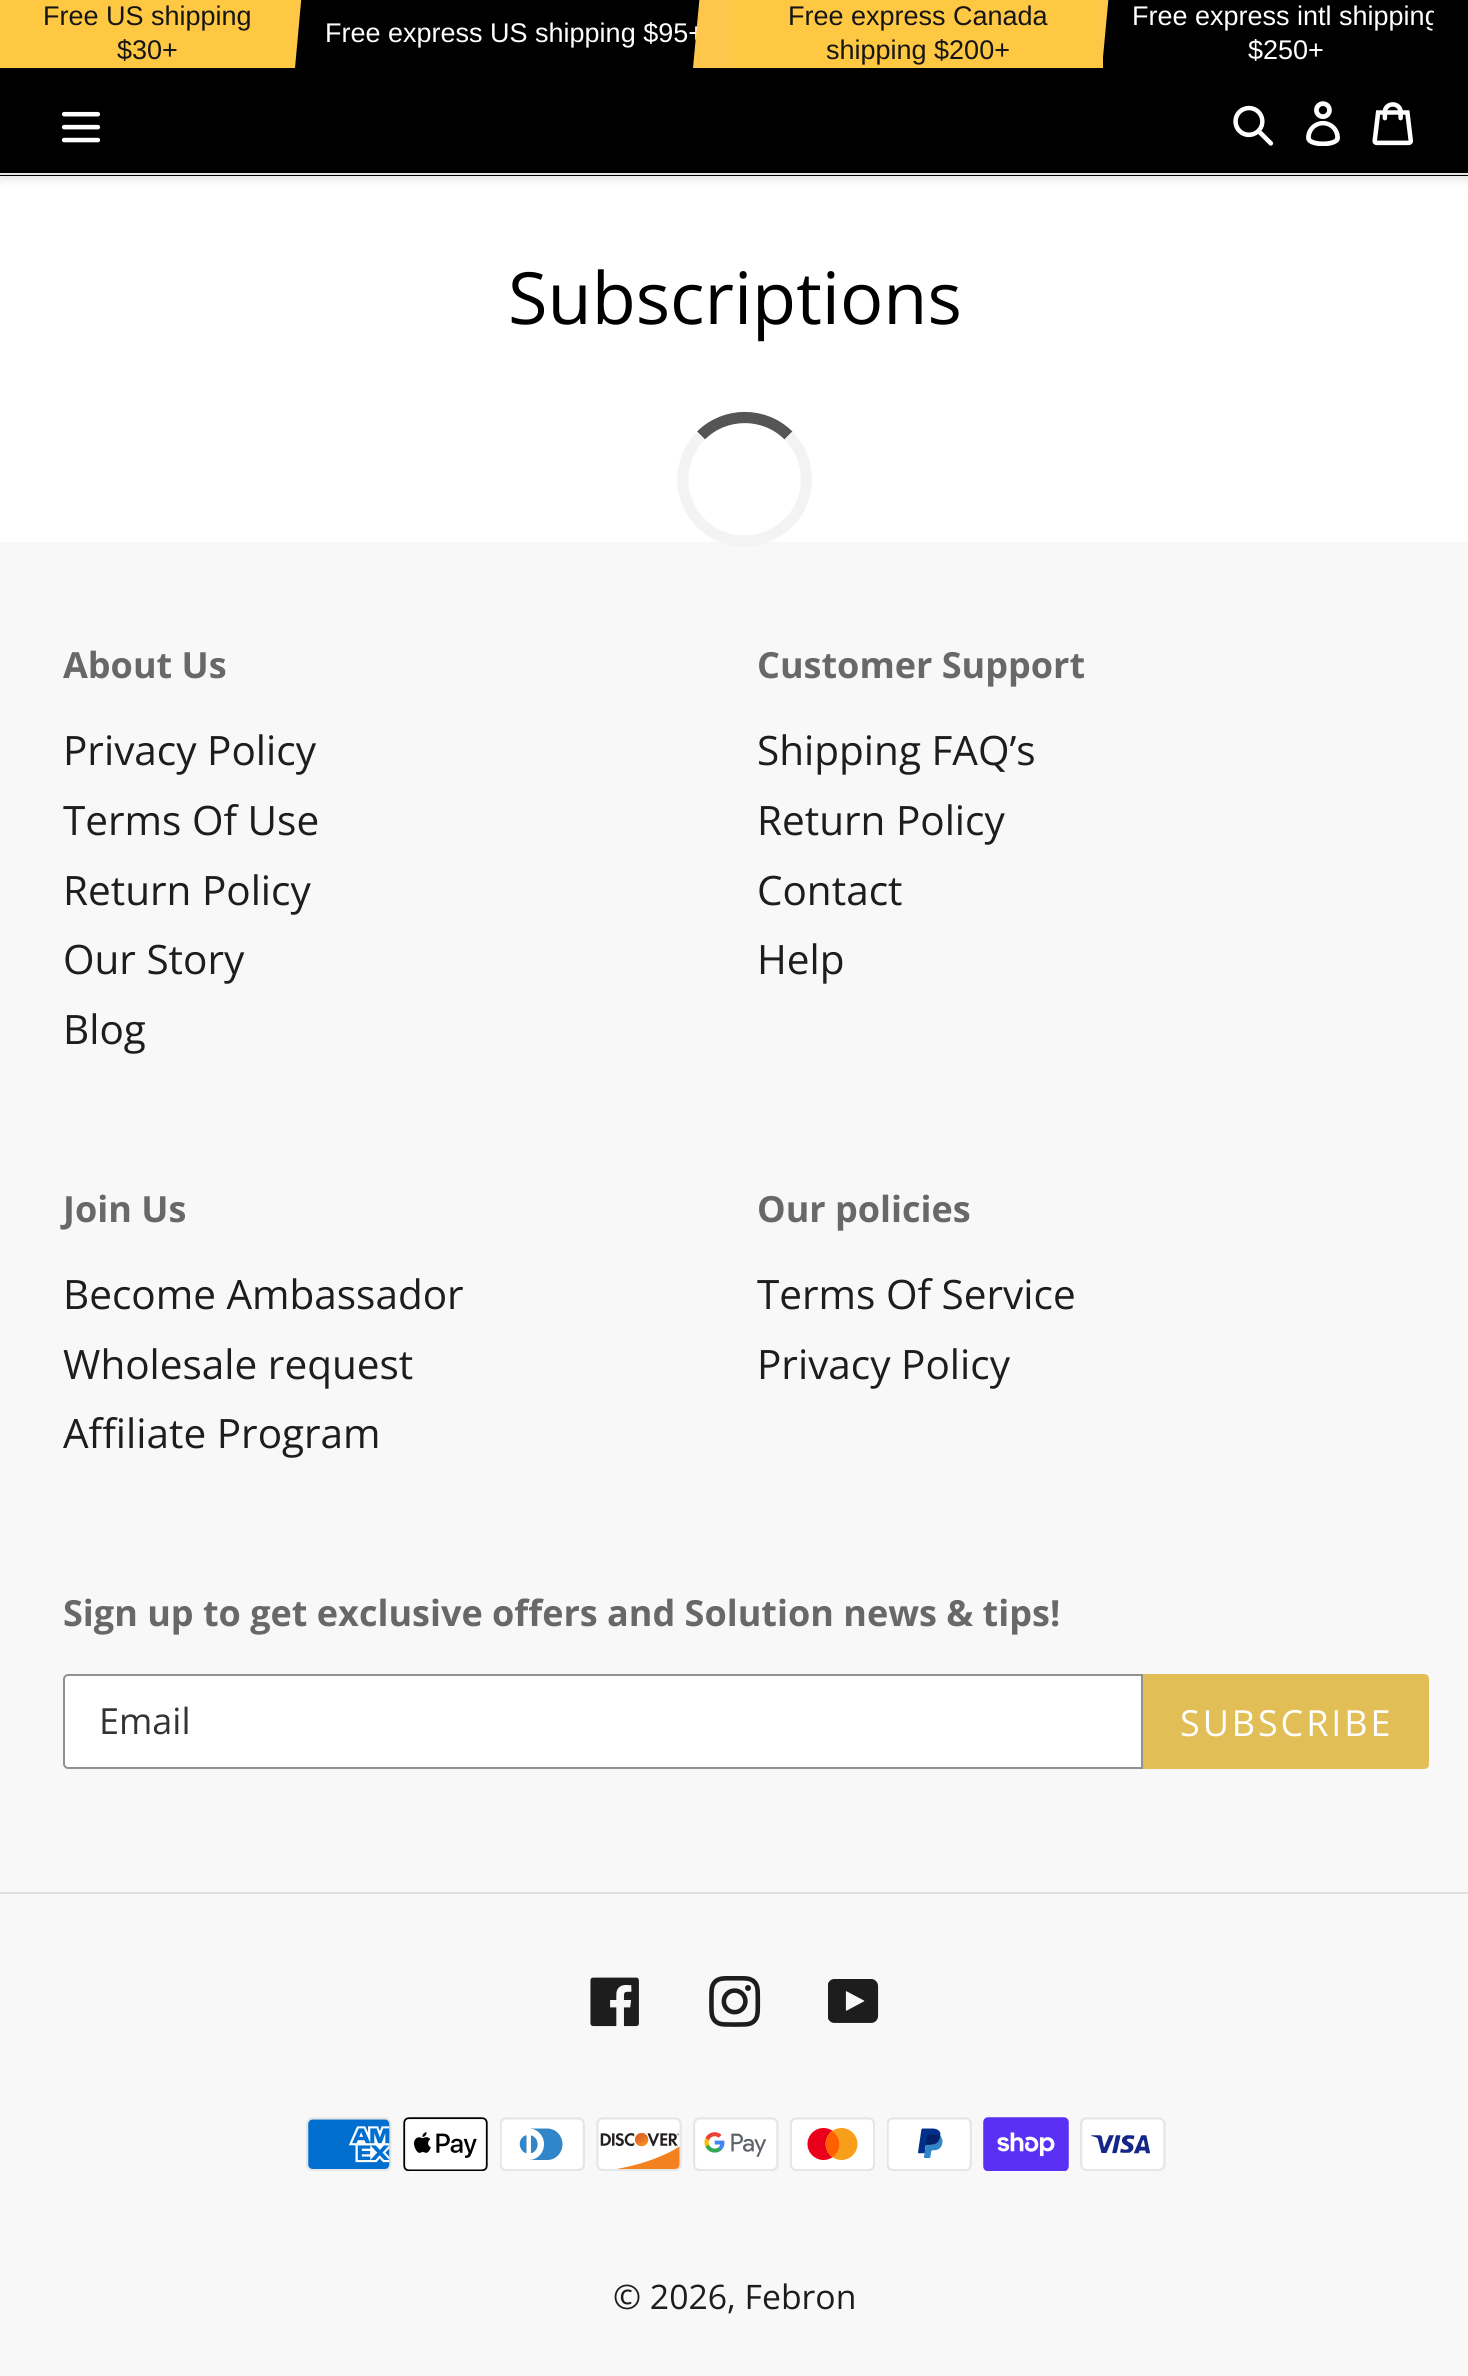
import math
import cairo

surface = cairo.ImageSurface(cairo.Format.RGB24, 1468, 2376)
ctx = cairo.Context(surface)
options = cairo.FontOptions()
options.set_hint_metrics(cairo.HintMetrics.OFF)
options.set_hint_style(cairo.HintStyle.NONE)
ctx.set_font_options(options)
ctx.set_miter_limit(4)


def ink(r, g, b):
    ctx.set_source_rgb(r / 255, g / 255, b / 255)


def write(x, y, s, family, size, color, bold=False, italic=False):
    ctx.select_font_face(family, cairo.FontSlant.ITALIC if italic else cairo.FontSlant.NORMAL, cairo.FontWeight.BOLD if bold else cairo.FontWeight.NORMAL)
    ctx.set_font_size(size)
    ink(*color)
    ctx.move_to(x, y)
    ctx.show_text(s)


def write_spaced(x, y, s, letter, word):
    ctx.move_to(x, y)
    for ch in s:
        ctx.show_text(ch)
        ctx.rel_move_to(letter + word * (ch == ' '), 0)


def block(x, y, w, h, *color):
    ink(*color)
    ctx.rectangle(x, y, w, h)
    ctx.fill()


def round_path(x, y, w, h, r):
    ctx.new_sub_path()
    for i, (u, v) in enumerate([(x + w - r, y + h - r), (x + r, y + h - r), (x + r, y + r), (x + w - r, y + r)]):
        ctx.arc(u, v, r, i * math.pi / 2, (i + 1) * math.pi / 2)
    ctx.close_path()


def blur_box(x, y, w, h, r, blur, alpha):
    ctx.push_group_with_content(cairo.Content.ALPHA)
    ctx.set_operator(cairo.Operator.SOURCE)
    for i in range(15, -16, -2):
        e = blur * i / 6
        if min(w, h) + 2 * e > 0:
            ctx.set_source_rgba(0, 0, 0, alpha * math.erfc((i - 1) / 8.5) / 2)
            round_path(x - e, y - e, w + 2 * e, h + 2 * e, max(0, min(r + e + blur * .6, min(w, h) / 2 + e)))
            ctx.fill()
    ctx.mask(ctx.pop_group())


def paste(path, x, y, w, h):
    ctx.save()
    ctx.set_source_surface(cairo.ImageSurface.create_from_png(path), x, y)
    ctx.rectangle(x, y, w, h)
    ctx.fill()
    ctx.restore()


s1 = dict(family="Liberation Sans", size=27, color=(21, 21, 21))
s2 = dict(family="Liberation Sans", size=27, color=(255, 255, 255))
s3 = dict(family="Open Sans", size=72, color=(0, 0, 0))
s4 = dict(family="Open Sans", size=36, color=(104, 104, 104), bold=True)
s5 = dict(family="Open Sans", size=40.5, color=(29, 29, 29))
s6 = dict(family="Open Sans", size=36, color=(51, 51, 51))
s7 = dict(family="Open Sans", size=33.75, color=(29, 29, 29))

ink(255, 255, 255)
ctx.paint()
ink(0, 0, 0)
blur_box(0, 5, 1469, 175, 0, 4.5, 0.1)
block(0, 0, 295, 68, 255, 200, 66)
write(43, 25, "Free US shipping", **s1)
write(117, 59, "$30+", **s1)
block(295, 0, 405, 68, 0, 0, 0)
ink(255, 198, 76)
ctx.new_path()
ctx.move_to(295, -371)
ctx.line_to(335, -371)
ctx.line_to(295, 68)
ctx.close_path()
ctx.fill()
write(325, 42, "Free express US shipping $95+", **s2)
ink(255, 198, 76)
ctx.new_path()
ctx.move_to(734, 68)
ctx.line_to(693, 68)
ctx.line_to(734, -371)
ctx.close_path()
ctx.fill()
block(734, 0, 369, 68, 255, 200, 66)
write(788, 25, "Free express Canada", **s1)
write(826, 59, "shipping $200+", **s1)
block(1103, 0, 333, 68, 0, 0, 0)
ink(255, 198, 76)
ctx.new_path()
ctx.move_to(1102, -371)
ctx.line_to(1143, -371)
ctx.line_to(1102, 68)
ctx.close_path()
ctx.fill()
write(1132, 25, "Free express intl shipping", **s2)
write(1248, 59, "$250+", **s2)
ink(0, 0, 0)
ctx.new_path()
ctx.move_to(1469, 68)
ctx.line_to(1429, 68)
ctx.line_to(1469, -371)
ctx.close_path()
ctx.fill()
block(0, 68, 1468, 108, 0, 0, 0)
block(0, 173, 1468, 2, 228, 228, 228)
paste("pic1.png", 61, 111, 40, 32)
paste("pic2.png", 1233, 105, 41, 41)
paste("pic3.png", 1306, 101, 34, 45)
paste("pic4.png", 1372, 102, 41, 44)
write(508, 324, "Subscriptions", **s3)
ctx.new_path()
ctx.move_to(701, 435.5)
ctx.curve_to(725, 411.5, 764.5, 411.5, 788.5, 435.5)
ink(85, 85, 85)
ctx.set_line_width(11.2)
ctx.stroke()
block(0, 542, 1468, 1834, 248, 248, 248)
ctx.new_path()
ctx.move_to(788.5, 435.5)
ctx.curve_to(800, 447, 806.5, 463, 806.5, 479)
ctx.curve_to(806.5, 534, 739.5, 561.5, 701, 523)
ctx.curve_to(692.5, 514.5, 686.5, 503.5, 684, 491.5)
ctx.curve_to(680, 471.5, 686.5, 450, 701, 435.5)
ink(243, 243, 243)
ctx.stroke()
write(63, 678, "About Us", **s4)
write(63, 765, "Privacy Policy", **s5)
write(63, 835, "Terms Of Use", **s5)
write(63, 905, "Return Policy", **s5)
write(63, 974, "Our Story", **s5)
write(63, 1044, "Blog", **s5)
write(757, 678, "Customer Support", **s4)
write(757, 765, "Shipping FAQ’s", **s5)
write(757, 835, "Return Policy", **s5)
write(757, 905, "Contact", **s5)
write(757, 974, "Help", **s5)
write(63, 1222, "Join Us", **s4)
write(63, 1309, "Become Ambassador", **s5)
write(63, 1379, "Wholesale request", **s5)
write(63, 1448, "Affiliate Program", **s5)
write(757, 1222, "Our policies", **s4)
write(757, 1309, "Terms Of Service", **s5)
write(757, 1379, "Privacy Policy", **s5)
write(63, 1626, "Sign up to get exclusive offers and Solution news & tips!", **s4)
ink(255, 255, 255)
ctx.new_path()
ctx.move_to(68, 1675)
ctx.line_to(1142, 1675)
ctx.line_to(1142, 1768)
ctx.line_to(68, 1768)
ctx.curve_to(66, 1768, 64, 1766, 64, 1764)
ctx.line_to(64, 1679)
ctx.curve_to(64, 1677, 66, 1675, 68, 1675)
ctx.close_path()
ctx.fill_preserve()
ink(144, 144, 144)
ctx.set_line_width(2)
ctx.stroke()
write(99, 1734, "Email", **s6)
ink(226, 190, 86)
ctx.new_path()
ctx.move_to(1143, 1674)
ctx.line_to(1424, 1674)
ctx.curve_to(1427, 1674, 1429, 1676, 1429, 1679)
ctx.line_to(1429, 1764)
ctx.curve_to(1429, 1767, 1427, 1769, 1424, 1769)
ctx.line_to(1143, 1769)
ctx.close_path()
ctx.fill()
ink(255, 255, 255)
write_spaced(1180, 1736, "SUBSCRIBE", 2.9, 0)
block(0, 1892, 1468, 2, 223, 223, 223)
paste("pic5.png", 590, 1977, 49, 50)
paste("pic6.png", 709, 1976, 52, 51)
paste("pic7.png", 828, 1979, 51, 44)
paste("pic8.png", 306, 2117, 86, 54)
paste("pic9.png", 403, 2117, 85, 54)
paste("pic10.png", 500, 2117, 85, 54)
paste("pic11.png", 596, 2117, 86, 54)
paste("pic12.png", 693, 2117, 86, 54)
paste("pic13.png", 790, 2117, 85, 54)
paste("pic14.png", 887, 2117, 85, 54)
paste("pic15.png", 983, 2117, 86, 54)
paste("pic16.png", 1080, 2117, 86, 54)
write(613, 2309, "© 2026, Febron", **s7)
surface.write_to_png("screenshot.png")
